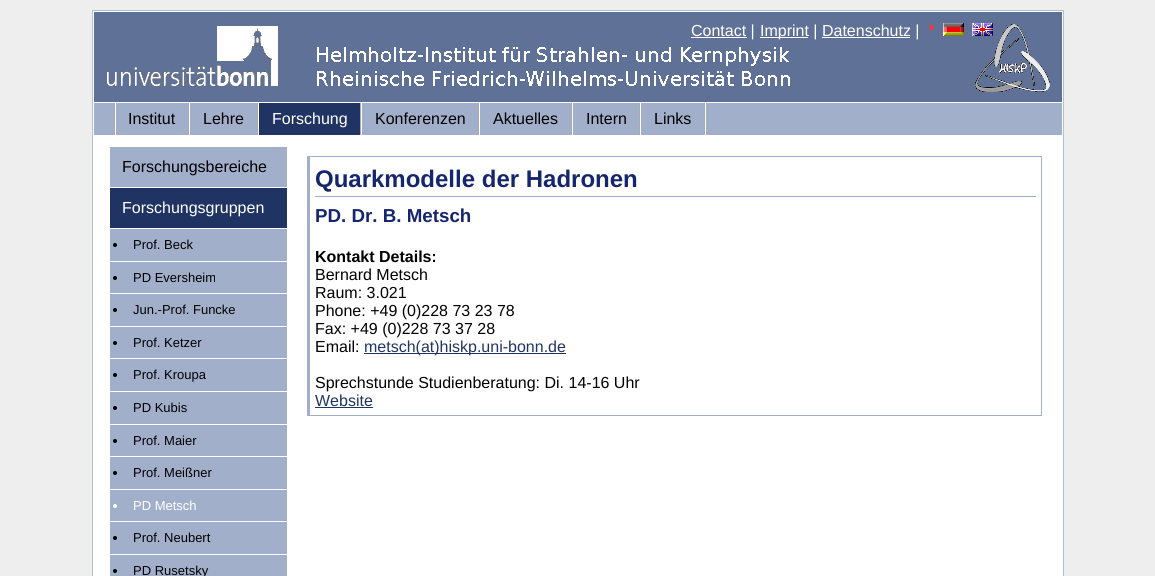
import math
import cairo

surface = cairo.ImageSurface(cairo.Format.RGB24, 1155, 576)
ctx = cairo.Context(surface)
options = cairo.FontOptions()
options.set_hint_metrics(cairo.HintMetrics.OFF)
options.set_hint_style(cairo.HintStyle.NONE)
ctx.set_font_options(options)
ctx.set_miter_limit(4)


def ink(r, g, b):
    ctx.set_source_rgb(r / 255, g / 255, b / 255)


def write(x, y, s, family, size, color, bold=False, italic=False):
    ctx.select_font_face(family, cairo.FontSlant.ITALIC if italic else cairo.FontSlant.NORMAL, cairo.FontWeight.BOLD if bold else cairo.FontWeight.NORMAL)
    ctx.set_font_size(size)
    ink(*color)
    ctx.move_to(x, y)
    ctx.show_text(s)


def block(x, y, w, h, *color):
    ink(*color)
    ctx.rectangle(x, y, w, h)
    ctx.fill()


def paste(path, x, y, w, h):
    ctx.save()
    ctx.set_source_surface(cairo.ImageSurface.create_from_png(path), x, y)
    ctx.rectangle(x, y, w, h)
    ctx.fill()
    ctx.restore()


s1 = dict(family="Liberation Sans", size=16, color=(255, 255, 255))
s2 = dict(family="Liberation Sans", size=16, color=(0, 0, 0))
s3 = dict(family="Liberation Sans", size=13, color=(0, 0, 0))
s4 = dict(family="Liberation Sans", size=13, color=(255, 255, 255))
s5 = dict(family="Liberation Sans", size=24, color=(22, 38, 110), bold=True)
s6 = dict(family="Liberation Sans", size=18.75, color=(22, 38, 110), bold=True)
s7 = dict(family="Liberation Sans", size=16, color=(0, 0, 0), bold=True)
s8 = dict(family="Liberation Sans", size=16, color=(32, 52, 99))

ink(238, 238, 238)
ctx.paint()
ink(255, 255, 255)
ctx.rectangle(92.5, 10.5, 971, 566)
ctx.fill_preserve()
ink(173, 193, 214)
ctx.set_line_width(1)
ctx.stroke()
block(94, 12, 968, 90, 96, 113, 152)
paste("pic1.png", 317, 24, 733, 68)
paste("pic2.png", 107, 26, 171, 60)
block(691, 37, 56, 1, 255, 255, 255)
write(691, 36, "Contact |", **s1)
block(760, 37, 48, 1, 255, 255, 255)
write(760, 36, "Imprint | Datenschutz |", **s1)
paste("pic3.png", 930, 24, 4, 7)
paste("pic4.png", 943, 23, 21, 13)
paste("pic5.png", 972, 23, 21, 13)
block(822, 37, 88, 1, 255, 255, 255)
block(94, 103, 968, 32, 162, 175, 203)
block(705, 103, 1, 32, 255, 255, 255)
block(114, 103, 1, 32, 170, 170, 170)
block(188, 103, 1, 32, 170, 170, 170)
block(115, 103, 1, 32, 255, 255, 255)
write(128, 124, "Institut", **s2)
block(257, 103, 1, 32, 170, 170, 170)
block(189, 103, 1, 32, 255, 255, 255)
write(203, 124, "Lehre", **s2)
block(259, 103, 101, 32, 32, 52, 99)
block(360, 103, 1, 32, 170, 170, 170)
block(258, 103, 1, 32, 255, 255, 255)
write(272, 124, "Forschung", **s1)
block(478, 103, 1, 32, 170, 170, 170)
block(361, 103, 1, 32, 255, 255, 255)
write(375, 124, "Konferenzen", **s2)
block(571, 103, 1, 32, 170, 170, 170)
block(479, 103, 1, 32, 255, 255, 255)
write(493, 124, "Aktuelles", **s2)
block(639, 103, 1, 32, 170, 170, 170)
block(572, 103, 1, 32, 255, 255, 255)
write(586, 124, "Intern", **s2)
block(704, 103, 1, 32, 170, 170, 170)
block(640, 103, 1, 32, 255, 255, 255)
write(654, 124, "Links", **s2)
block(110, 147, 177, 40, 162, 175, 203)
write(122, 172, "Forschungsbereiche", **s2)
block(110, 188, 177, 40, 32, 52, 99)
write(122, 213, "Forschungsgruppen", **s1)
block(110, 229, 177, 347, 162, 175, 203)
ink(0, 0, 0)
ctx.new_path()
ctx.arc(115, 245, 2, 0, 2 * math.pi)
ctx.fill()
write(133, 249, "Prof. Beck", **s3)
block(110, 261, 177, 1, 255, 255, 255)
ink(0, 0, 0)
ctx.new_path()
ctx.arc(115, 278, 2, 0, 2 * math.pi)
ctx.fill()
write(133, 282, "PD Eversheim", **s3)
block(110, 293, 177, 1, 255, 255, 255)
ink(0, 0, 0)
ctx.new_path()
ctx.arc(115, 310, 2, 0, 2 * math.pi)
ctx.fill()
write(133, 314, "Jun.-Prof. Funcke", **s3)
block(110, 326, 177, 1, 255, 255, 255)
ink(0, 0, 0)
ctx.new_path()
ctx.arc(115, 343, 2, 0, 2 * math.pi)
ctx.fill()
write(133, 347, "Prof. Ketzer", **s3)
block(110, 358, 177, 1, 255, 255, 255)
ink(0, 0, 0)
ctx.new_path()
ctx.arc(115, 375, 2, 0, 2 * math.pi)
ctx.fill()
write(133, 379, "Prof. Kroupa", **s3)
block(110, 391, 177, 1, 255, 255, 255)
ink(0, 0, 0)
ctx.new_path()
ctx.arc(115, 408, 2, 0, 2 * math.pi)
ctx.fill()
write(133, 412, "PD Kubis", **s3)
block(110, 424, 177, 1, 255, 255, 255)
ink(0, 0, 0)
ctx.new_path()
ctx.arc(115, 441, 2, 0, 2 * math.pi)
ctx.fill()
write(133, 445, "Prof. Maier", **s3)
block(110, 456, 177, 1, 255, 255, 255)
ink(0, 0, 0)
ctx.new_path()
ctx.arc(115, 473, 2, 0, 2 * math.pi)
ctx.fill()
write(133, 477, "Prof. Meißner", **s3)
block(110, 489, 177, 1, 255, 255, 255)
ctx.new_path()
ctx.arc(115, 506, 2, 0, 2 * math.pi)
ctx.fill()
write(133, 510, "PD Metsch", **s4)
block(110, 521, 177, 1, 255, 255, 255)
ink(0, 0, 0)
ctx.new_path()
ctx.arc(115, 538, 2, 0, 2 * math.pi)
ctx.fill()
write(133, 542, "Prof. Neubert", **s3)
block(110, 554, 177, 1, 255, 255, 255)
ink(0, 0, 0)
ctx.new_path()
ctx.arc(115, 571, 2, 0, 2 * math.pi)
ctx.fill()
write(133, 575, "PD Rusetsky", **s3)
block(307, 156, 735, 1, 162, 175, 203)
block(1041, 156, 1, 260, 162, 175, 203)
block(307, 415, 735, 1, 162, 175, 203)
block(307, 156, 3, 260, 162, 175, 203)
block(315, 196, 721, 1, 162, 175, 203)
write(315, 187, "Quarkmodelle der Hadronen", **s5)
write(315, 222, "PD. Dr. B. Metsch", **s6)
write(315, 262, "Kontakt Details:", **s7)
write(315, 280, "Bernard Metsch", **s2)
write(315, 298, "Raum: 3.021", **s2)
write(315, 316, "Phone: +49 (0)228 73 23 78", **s2)
write(315, 334, "Fax: +49 (0)228 73 37 28", **s2)
write(315, 352, "Email:", **s2)
block(364, 353, 202, 1, 32, 52, 99)
write(364, 352, "metsch(at)hiskp.uni-bonn.de", **s8)
write(315, 388, "Sprechstunde Studienberatung: Di. 14-16 Uhr", **s2)
write(315, 406, "Website", **s8)
block(315, 407, 58, 1, 32, 52, 99)
surface.write_to_png("screenshot.png")
